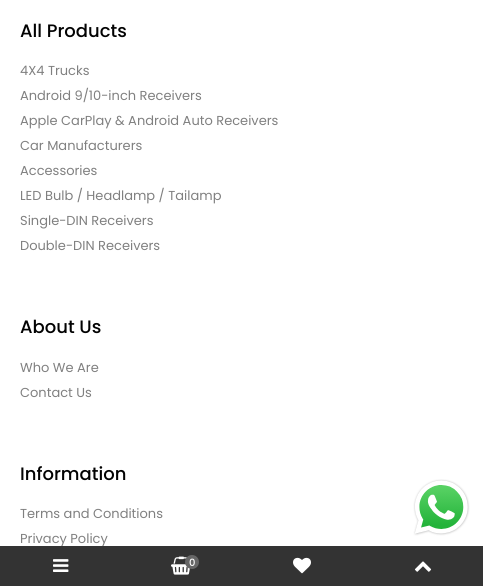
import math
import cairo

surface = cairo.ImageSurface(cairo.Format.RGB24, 483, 586)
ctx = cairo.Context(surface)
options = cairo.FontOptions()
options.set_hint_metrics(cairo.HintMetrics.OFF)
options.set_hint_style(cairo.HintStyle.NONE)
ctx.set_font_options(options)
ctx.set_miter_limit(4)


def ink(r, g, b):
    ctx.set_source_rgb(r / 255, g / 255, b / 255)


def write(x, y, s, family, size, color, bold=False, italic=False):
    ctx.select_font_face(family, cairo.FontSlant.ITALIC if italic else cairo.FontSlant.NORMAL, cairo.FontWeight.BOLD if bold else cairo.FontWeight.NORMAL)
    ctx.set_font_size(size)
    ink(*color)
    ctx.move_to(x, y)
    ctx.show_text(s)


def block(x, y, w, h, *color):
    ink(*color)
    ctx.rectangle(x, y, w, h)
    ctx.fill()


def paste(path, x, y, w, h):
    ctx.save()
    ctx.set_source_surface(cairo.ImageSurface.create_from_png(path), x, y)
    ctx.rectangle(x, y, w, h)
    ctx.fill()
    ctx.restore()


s1 = dict(family="Poppins Medium", size=18, color=(2, 2, 2))
s2 = dict(family="Poppins", size=13, color=(128, 128, 128))
s3 = dict(family="Poppins Medium", size=10, color=(255, 255, 255))

ink(255, 255, 255)
ctx.paint()
write(20, 37, "All Products", **s1)
write(20, 75, "4X4 Trucks", **s2)
write(20, 100, "Android 9/10-inch Receivers", **s2)
write(20, 125, "Apple CarPlay & Android Auto Receivers", **s2)
write(20, 150, "Car Manufacturers", **s2)
write(20, 175, "Accessories", **s2)
write(20, 200, "LED Bulb / Headlamp / Tailamp", **s2)
write(20, 225, "Single-DIN Receivers", **s2)
write(20, 250, "Double-DIN Receivers", **s2)
write(20, 333, "About Us", **s1)
write(20, 372, "Who We Are", **s2)
write(20, 397, "Contact Us", **s2)
write(20, 480, "Information", **s1)
write(20, 518, "Terms and Conditions", **s2)
write(20, 543, "Privacy Policy", **s2)
block(0, 546, 362, 40, 51, 51, 51)
paste("pic1.png", 53, 559, 16, 13)
block(362, 546, 121, 40, 51, 51, 51)
paste("pic2.png", 414, 561, 18, 11)
paste("pic3.png", 171, 556, 19, 19)
ink(102, 102, 102)
ctx.arc(192, 562, 7, 0, 2 * math.pi)
ctx.fill()
write(189, 566, "0", **s3)
paste("pic4.png", 293, 557, 18, 17)
paste("pic5.png", 413, 479, 57, 57)
surface.write_to_png("screenshot.png")
